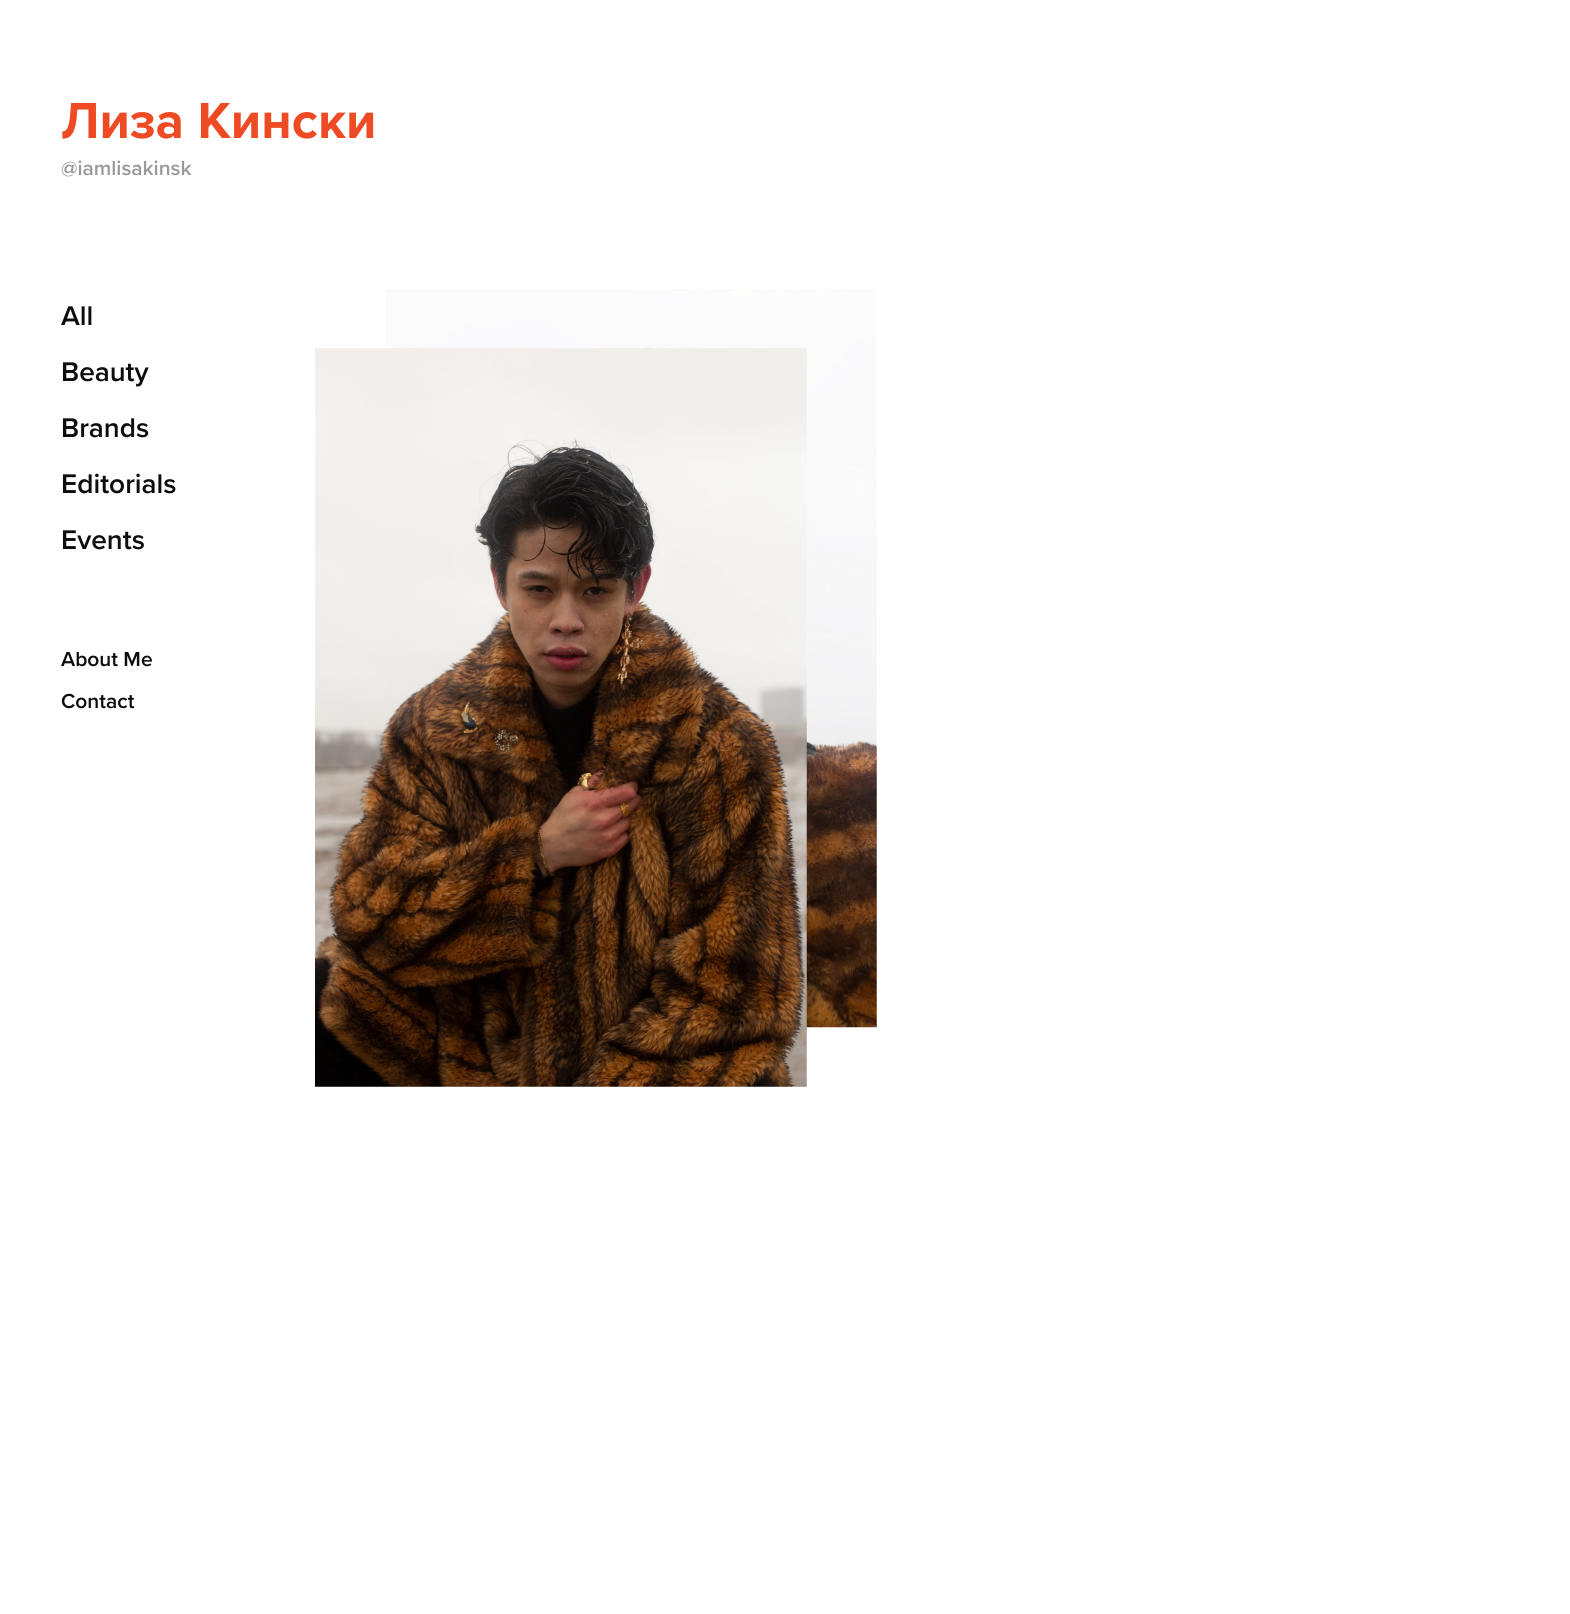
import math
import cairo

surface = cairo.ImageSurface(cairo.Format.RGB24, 1570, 1614)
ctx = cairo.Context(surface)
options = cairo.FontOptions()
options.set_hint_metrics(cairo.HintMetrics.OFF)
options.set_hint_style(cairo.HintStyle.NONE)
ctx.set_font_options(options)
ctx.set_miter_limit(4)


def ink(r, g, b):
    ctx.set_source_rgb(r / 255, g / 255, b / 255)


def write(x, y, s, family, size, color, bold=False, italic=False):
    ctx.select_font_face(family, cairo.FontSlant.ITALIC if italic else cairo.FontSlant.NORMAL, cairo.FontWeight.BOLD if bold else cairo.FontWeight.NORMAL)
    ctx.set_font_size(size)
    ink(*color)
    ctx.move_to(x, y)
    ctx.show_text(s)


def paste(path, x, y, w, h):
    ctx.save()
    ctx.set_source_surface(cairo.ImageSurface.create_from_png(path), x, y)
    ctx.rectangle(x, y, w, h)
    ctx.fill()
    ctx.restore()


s1 = dict(family="Proxima Nova", size=52.5, color=(238, 75, 36), bold=True)
s2 = dict(family="Proxima Nova SemiBold", size=21, color=(153, 153, 153))
s3 = dict(family="Proxima Nova SemiBold", size=28, color=(13, 13, 13))
s4 = dict(family="Proxima Nova SemiBold", size=21, color=(13, 13, 13))

ink(255, 255, 255)
ctx.paint()
write(61, 138, "Лиза Кински", **s1)
write(61, 175, "@iamlisakinsk", **s2)
write(61, 325, "All", **s3)
write(61, 381, "Beauty", **s3)
write(61, 437, "Brands", **s3)
write(61, 493, "Editorials", **s3)
write(61, 549, "Events", **s3)
write(61, 666, "About Me", **s4)
write(61, 708, "Contact", **s4)
paste("pic1.png", 385, 289, 492, 739)
paste("pic2.png", 315, 348, 492, 739)
surface.write_to_png("screenshot.png")
